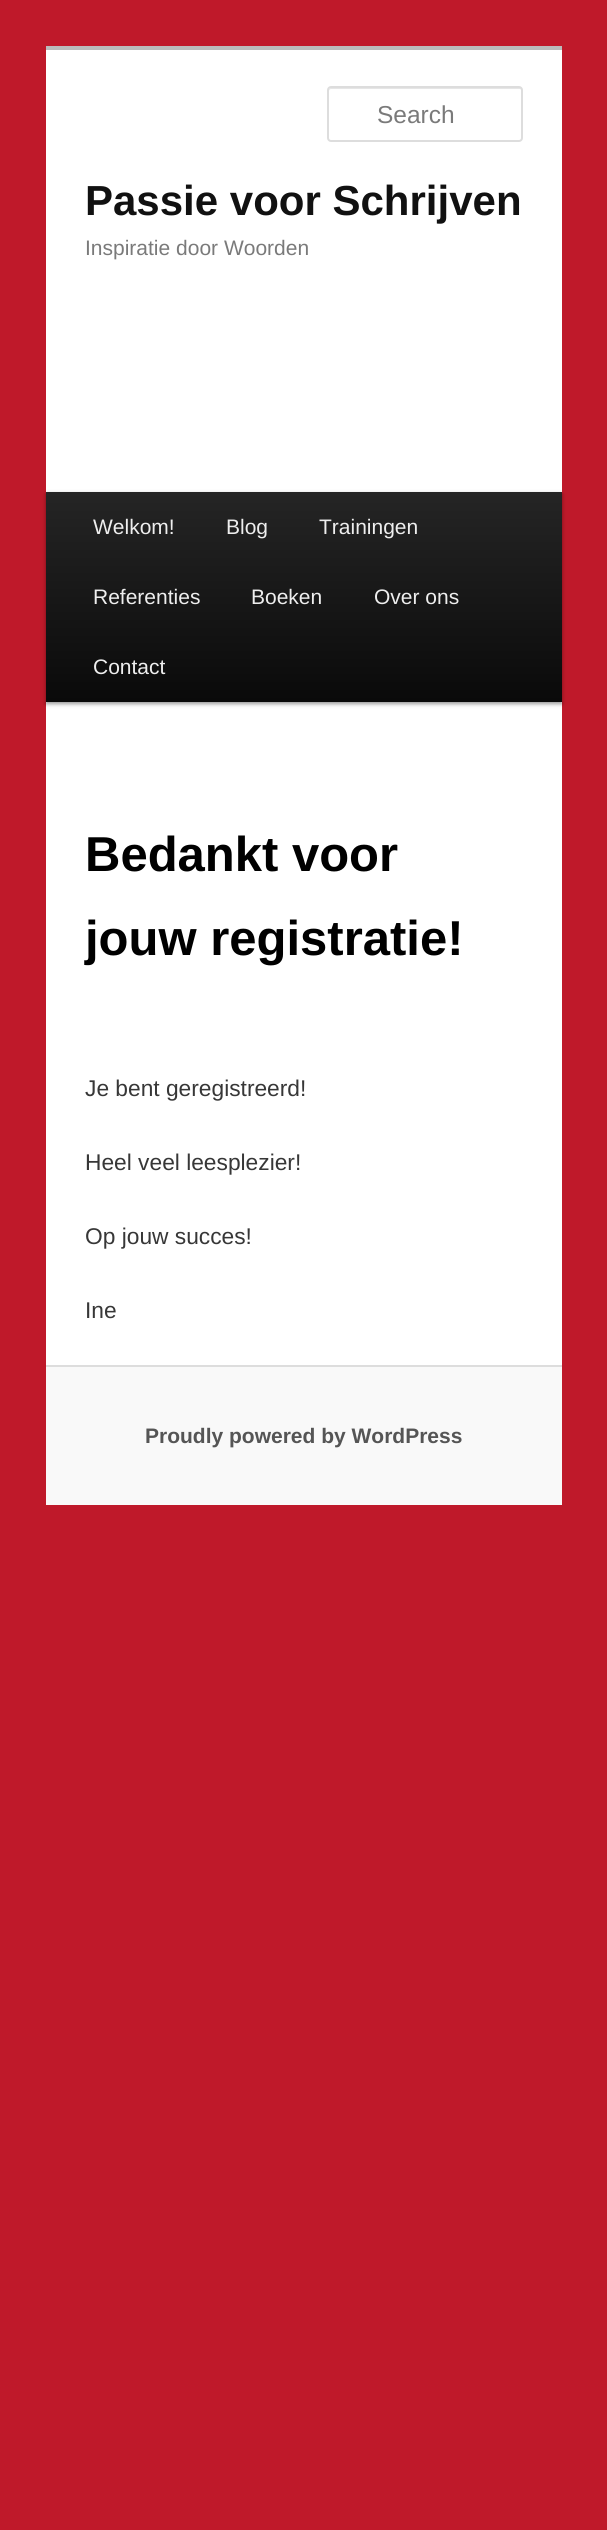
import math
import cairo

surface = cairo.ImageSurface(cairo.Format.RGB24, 607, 2530)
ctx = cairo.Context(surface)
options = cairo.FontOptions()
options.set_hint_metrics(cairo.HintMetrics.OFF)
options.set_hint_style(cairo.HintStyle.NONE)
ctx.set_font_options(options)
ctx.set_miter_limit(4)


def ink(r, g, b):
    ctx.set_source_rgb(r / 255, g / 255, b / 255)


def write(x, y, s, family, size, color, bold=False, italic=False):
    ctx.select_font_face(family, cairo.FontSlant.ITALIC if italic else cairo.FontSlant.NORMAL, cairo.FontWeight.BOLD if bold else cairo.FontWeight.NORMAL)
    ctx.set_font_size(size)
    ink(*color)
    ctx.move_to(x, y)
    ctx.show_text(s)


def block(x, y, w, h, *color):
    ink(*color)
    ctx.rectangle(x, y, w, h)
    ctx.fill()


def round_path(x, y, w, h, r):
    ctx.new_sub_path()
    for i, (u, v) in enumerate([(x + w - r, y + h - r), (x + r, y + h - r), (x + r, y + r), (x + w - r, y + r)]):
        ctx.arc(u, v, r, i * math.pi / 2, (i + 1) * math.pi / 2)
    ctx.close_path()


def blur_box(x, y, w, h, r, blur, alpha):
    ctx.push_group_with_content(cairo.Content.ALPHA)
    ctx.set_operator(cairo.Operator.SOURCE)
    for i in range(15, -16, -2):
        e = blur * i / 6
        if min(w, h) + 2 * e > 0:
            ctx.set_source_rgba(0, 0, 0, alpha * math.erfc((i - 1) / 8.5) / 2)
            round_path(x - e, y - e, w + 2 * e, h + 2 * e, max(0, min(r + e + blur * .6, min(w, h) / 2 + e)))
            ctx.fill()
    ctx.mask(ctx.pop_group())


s1 = dict(family="Liberation Sans", size=24.5, color=(122, 122, 122))
s2 = dict(family="Liberation Sans", size=42, color=(17, 17, 17), bold=True)
s3 = dict(family="Liberation Sans", size=21, color=(122, 122, 122))
s4 = dict(family="Liberation Sans", size=21, color=(238, 238, 238))
s5 = dict(family="Liberation Sans", size=49, color=(0, 0, 0), bold=True)
s6 = dict(family="Liberation Sans", size=22.75, color=(55, 55, 55))
s7 = dict(family="Liberation Sans", size=21, color=(85, 85, 85), bold=True)

ink(191, 25, 42)
ctx.paint()
block(46, 50, 516, 1315, 255, 255, 255)
block(46, 46, 516, 4, 187, 187, 187)
ink(230, 230, 230)
ctx.new_path()
ctx.move_to(331, 89)
ctx.line_to(520, 89)
ctx.line_to(522, 90)
ctx.line_to(522, 91)
ctx.line_to(522, 90)
ctx.curve_to(522, 89, 521, 88, 520, 88)
ctx.line_to(331, 88)
ctx.curve_to(330, 88, 329, 89, 329, 90)
ctx.line_to(329, 91)
ctx.curve_to(329, 90, 330, 89, 331, 89)
ctx.close_path()
ctx.fill()
round_path(328, 87, 194, 54, 3)
ink(221, 221, 221)
ctx.stroke()
write(377, 123, "Search", **s1)
write(85, 215, "Passie voor Schrijven", **s2)
write(85, 255, "Inspiratie door Woorden", **s3)
ink(0, 0, 0)
blur_box(46, 494, 516, 210, 0, 2, 0.4)
gradient = cairo.LinearGradient(304, 492, 304, 702)
gradient.add_color_stop_rgba(0, 0.145, 0.145, 0.145, 1)
gradient.add_color_stop_rgba(1, 0.039, 0.039, 0.039, 1)
ctx.set_source(gradient)
ctx.rectangle(46, 492, 516, 210)
ctx.fill()
write(93, 534, "Welkom!", **s4)
write(226, 534, "Blog", **s4)
write(319, 534, "Trainingen", **s4)
write(93, 604, "Referenties", **s4)
write(251, 604, "Boeken", **s4)
write(374, 604, "Over ons", **s4)
write(93, 674, "Contact", **s4)
write(85, 871, "Bedankt voor", **s5)
write(85, 955, "jouw registratie!", **s5)
write(85, 1096, "Je bent geregistreerd!", **s6)
write(85, 1170, "Heel veel leesplezier!", **s6)
write(85, 1244, "Op jouw succes!", **s6)
write(85, 1318, "Ine", **s6)
block(46, 1367, 516, 138, 249, 249, 249)
block(46, 1365, 516, 2, 221, 221, 221)
write(145, 1443, "Proudly powered by WordPress", **s7)
surface.write_to_png("screenshot.png")
